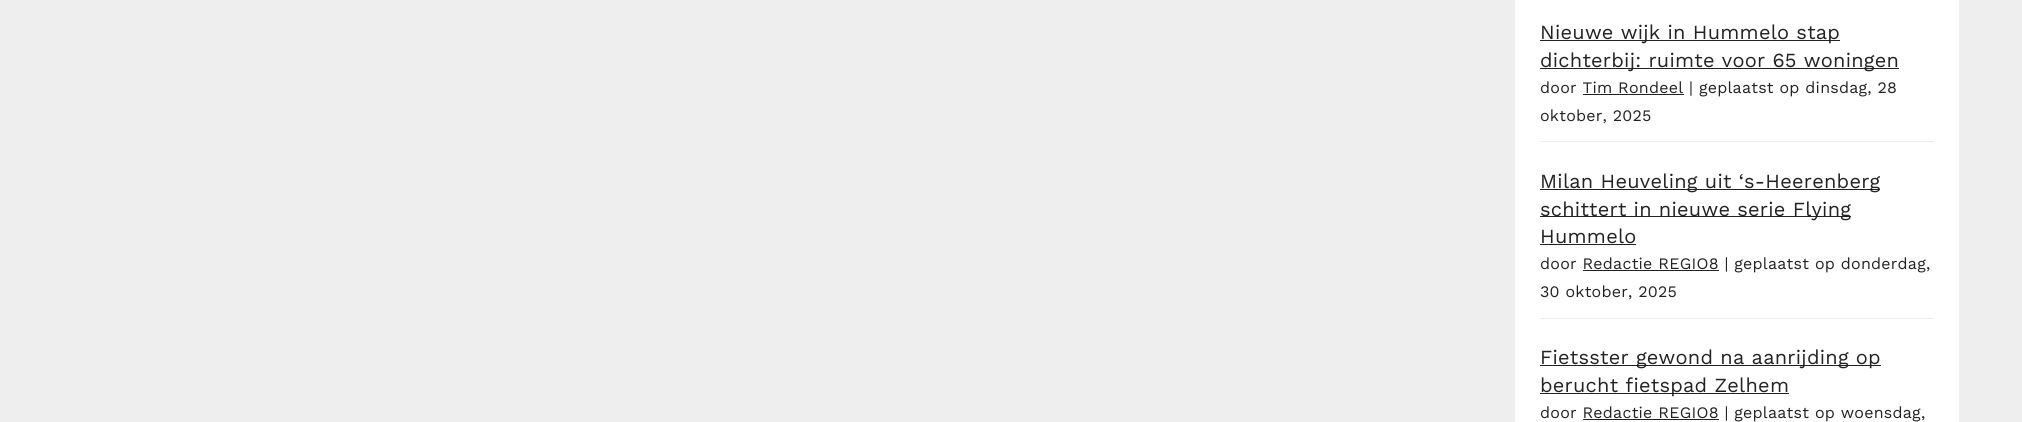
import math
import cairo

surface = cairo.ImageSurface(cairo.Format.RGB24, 2022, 422)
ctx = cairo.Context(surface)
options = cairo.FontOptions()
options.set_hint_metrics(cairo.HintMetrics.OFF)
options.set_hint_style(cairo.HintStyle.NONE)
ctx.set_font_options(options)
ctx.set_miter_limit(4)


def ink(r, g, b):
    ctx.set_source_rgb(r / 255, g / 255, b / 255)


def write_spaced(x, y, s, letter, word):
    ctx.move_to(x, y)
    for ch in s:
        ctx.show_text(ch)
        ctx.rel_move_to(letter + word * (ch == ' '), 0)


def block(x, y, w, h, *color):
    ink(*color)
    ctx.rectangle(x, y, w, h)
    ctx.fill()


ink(238, 238, 238)
ctx.paint()
block(1515, 0, 444, 422, 255, 255, 255)
block(1540, 141, 394, 1, 238, 238, 238)
block(1540, 40, 300, 1, 34, 34, 34)
ctx.select_font_face("Work Sans")
ctx.set_font_size(20)
write_spaced(1540, 39, "Nieuwe wijk in Hummelo stap", 0.25, 0)
block(1540, 68, 359, 1, 34, 34, 34)
write_spaced(1540, 67, "dichterbij: ruimte voor 65 woningen", 0.25, 0)
ctx.set_font_size(16)
write_spaced(1540, 93, "door Tim Rondeel | geplaatst op dinsdag, 28", 0.25, 0)
block(1583, 94, 101, 1, 34, 34, 34)
write_spaced(1540, 121, "oktober, 2025", 0.25, 0)
block(1540, 318, 394, 1, 238, 238, 238)
block(1540, 189, 340, 1, 34, 34, 34)
ctx.set_font_size(20)
write_spaced(1540, 188, "Milan Heuveling uit ‘s-Heerenberg", 0.25, 0)
block(1540, 216, 311, 1, 34, 34, 34)
write_spaced(1540, 216, "schittert in nieuwe serie Flying", 0.25, 0)
write_spaced(1540, 243, "Hummelo", 0.25, 0)
block(1540, 244, 96, 1, 34, 34, 34)
ctx.set_font_size(16)
write_spaced(1540, 269, "door Redactie REGIO8 | geplaatst op donderdag,", 0.25, 0)
block(1583, 270, 136, 1, 34, 34, 34)
write_spaced(1540, 297, "30 oktober, 2025", 0.25, 0)
block(1540, 365, 341, 1, 34, 34, 34)
ctx.set_font_size(20)
write_spaced(1540, 364, "Fietsster gewond na aanrijding op", 0.25, 0)
block(1540, 393, 249, 1, 34, 34, 34)
write_spaced(1540, 392, "berucht fietspad Zelhem", 0.25, 0)
ctx.set_font_size(16)
write_spaced(1540, 418, "door Redactie REGIO8 | geplaatst op woensdag,", 0.25, 0)
block(1583, 419, 136, 1, 34, 34, 34)
surface.write_to_png("screenshot.png")
